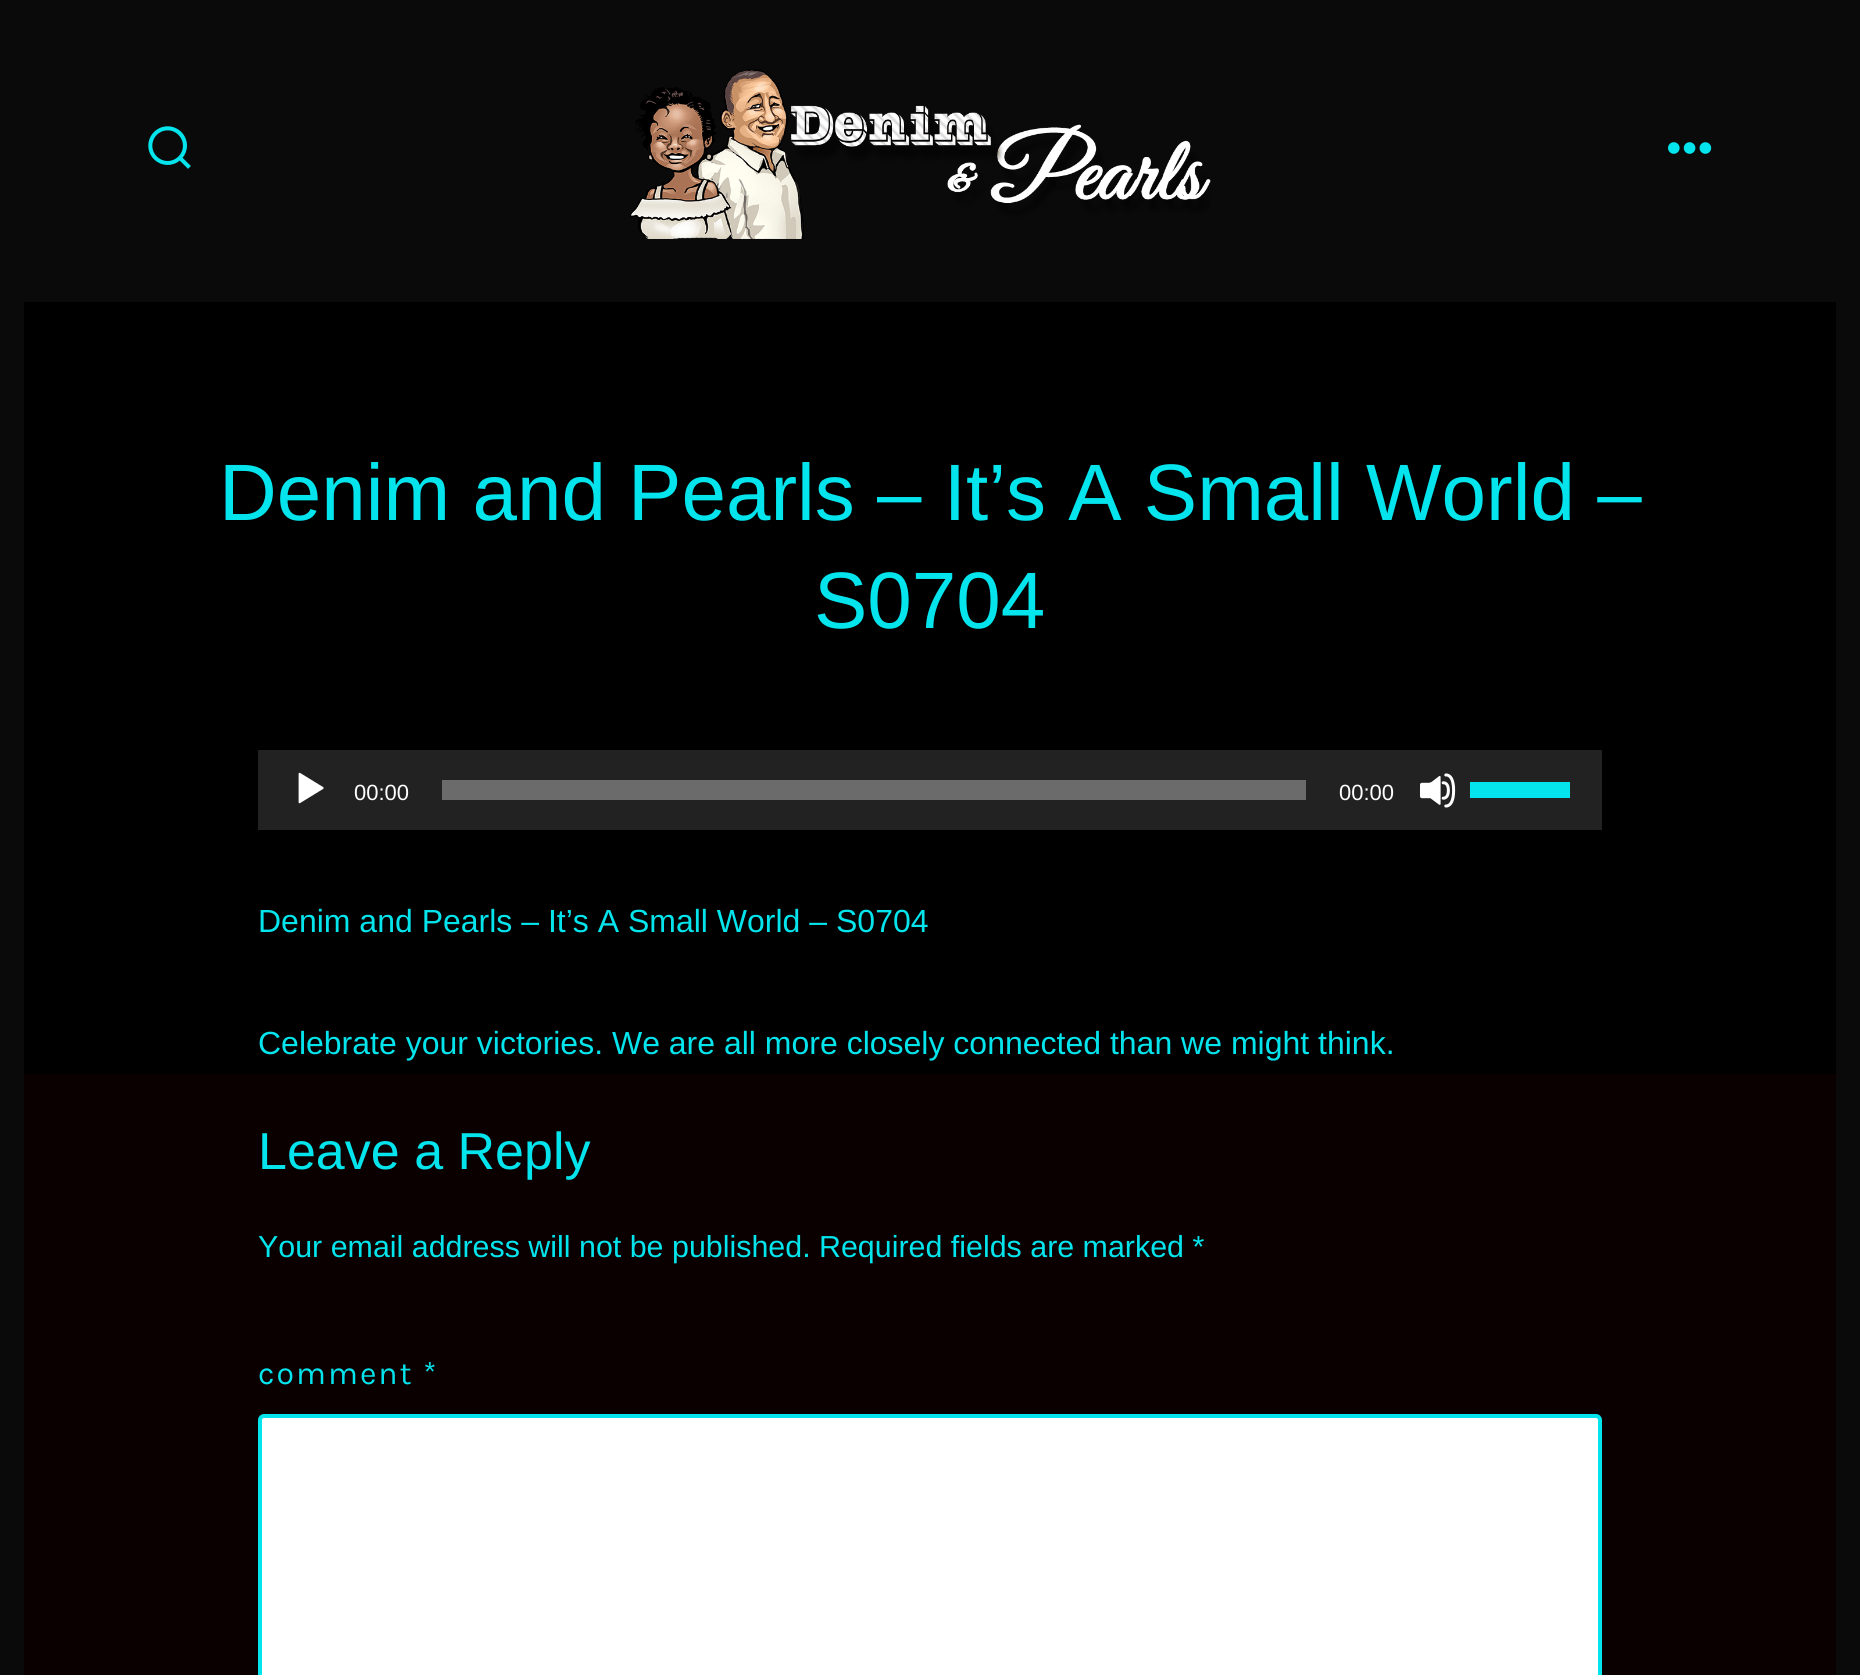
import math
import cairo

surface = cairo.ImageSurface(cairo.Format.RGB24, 1860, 1675)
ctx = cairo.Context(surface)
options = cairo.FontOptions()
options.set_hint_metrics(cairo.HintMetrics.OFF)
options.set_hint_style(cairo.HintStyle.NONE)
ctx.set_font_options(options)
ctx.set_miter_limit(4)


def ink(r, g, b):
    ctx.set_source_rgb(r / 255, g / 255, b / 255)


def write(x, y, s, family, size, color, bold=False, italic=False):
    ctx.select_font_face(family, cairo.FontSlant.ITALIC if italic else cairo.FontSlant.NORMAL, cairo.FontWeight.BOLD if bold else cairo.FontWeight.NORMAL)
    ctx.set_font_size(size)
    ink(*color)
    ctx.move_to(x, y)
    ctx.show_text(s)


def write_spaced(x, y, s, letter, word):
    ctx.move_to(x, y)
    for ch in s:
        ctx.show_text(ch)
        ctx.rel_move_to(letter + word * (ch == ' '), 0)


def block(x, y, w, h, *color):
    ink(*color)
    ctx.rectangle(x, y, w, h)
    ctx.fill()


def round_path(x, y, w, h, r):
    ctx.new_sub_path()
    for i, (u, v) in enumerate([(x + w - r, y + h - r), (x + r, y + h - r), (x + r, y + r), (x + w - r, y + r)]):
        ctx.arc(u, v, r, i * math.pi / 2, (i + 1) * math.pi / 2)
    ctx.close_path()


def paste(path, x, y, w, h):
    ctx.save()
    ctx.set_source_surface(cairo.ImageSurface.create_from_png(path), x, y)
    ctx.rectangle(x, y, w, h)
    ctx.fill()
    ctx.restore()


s1 = dict(family="Liberation Sans", size=80, color=(4, 228, 236))
s2 = dict(family="Liberation Sans", size=22, color=(255, 255, 255))
s3 = dict(family="Liberation Sans", size=32, color=(4, 228, 236))
s4 = dict(family="Liberation Sans", size=52, color=(4, 228, 236))
s5 = dict(family="Liberation Sans", size=30.4, color=(4, 228, 236))

ink(10, 0, 0)
ctx.paint()
block(1836, 0, 24, 1675, 10, 10, 10)
block(0, 0, 24, 1675, 10, 10, 10)
block(24, 0, 1812, 302, 10, 10, 10)
paste("pic1.png", 148, 126, 43, 43)
paste("pic2.png", 630, 69, 581, 170)
paste("pic3.png", 1668, 142, 44, 12)
block(24, 302, 1812, 772, 0, 0, 0)
write(219, 520, "Denim and Pearls – It’s A Small World –", **s1)
write(814, 628, "S0704", **s1)
block(258, 750, 1344, 80, 34, 34, 34)
paste("pic4.png", 298, 772, 26, 32)
write(354, 800, "00:00", **s2)
block(442, 780, 864, 20, 107, 107, 107)
write(1339, 800, "00:00", **s2)
paste("pic5.png", 1420, 773, 36, 35)
block(1470, 782, 100, 16, 4, 228, 236)
write(258, 932, "Denim and Pearls – It’s A Small World – S0704", **s3)
write(258, 1054, "Celebrate your victories. We are all more closely connected than we might think.", **s3)
write(258, 1169, "Leave a Reply", **s4)
write(258, 1257, "Your email address will not be published.", **s5)
write(819, 1257, "Required fields are marked *", **s5)
ctx.select_font_face("Karla")
ctx.set_font_size(32)
write_spaced(258, 1384, "comment *", 2, 0)
ink(255, 255, 255)
round_path(260, 1416, 1340, 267, 4)
ctx.fill_preserve()
ink(4, 228, 236)
ctx.set_line_width(4)
ctx.stroke()
surface.write_to_png("screenshot.png")
